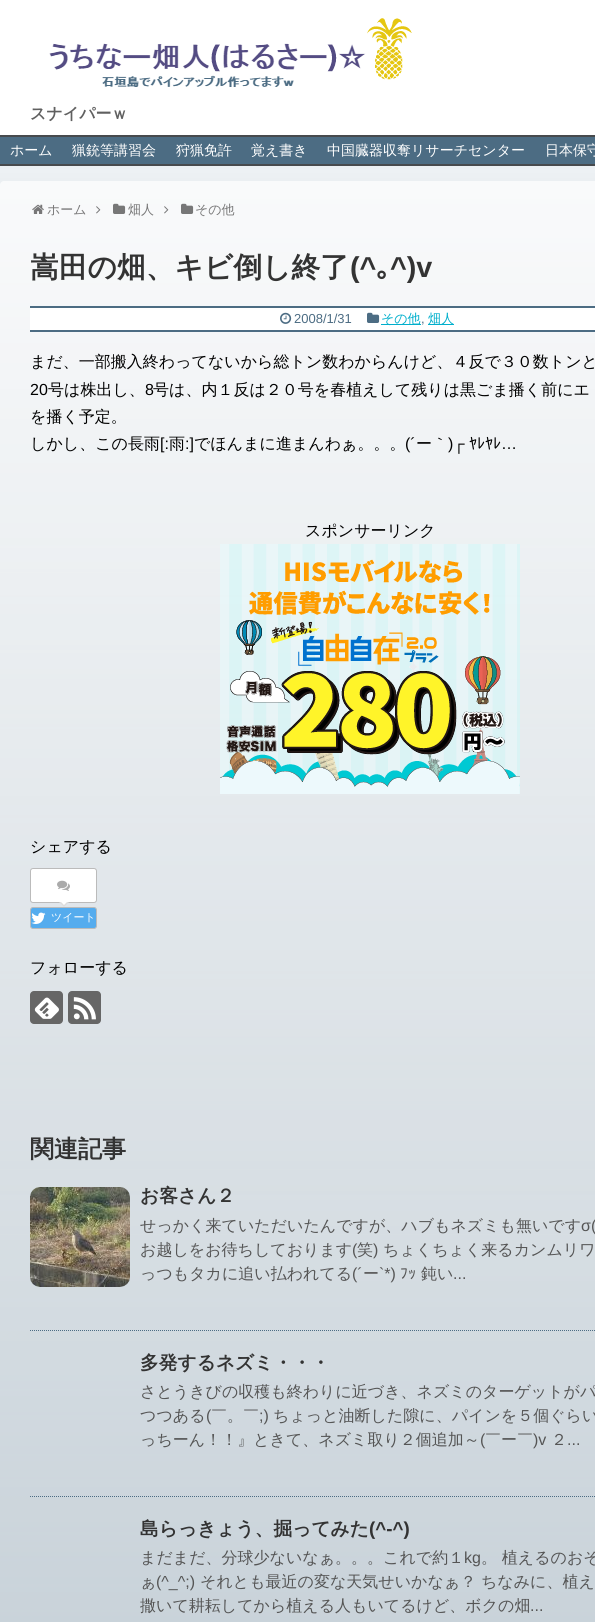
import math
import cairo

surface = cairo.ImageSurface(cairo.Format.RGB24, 595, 1622)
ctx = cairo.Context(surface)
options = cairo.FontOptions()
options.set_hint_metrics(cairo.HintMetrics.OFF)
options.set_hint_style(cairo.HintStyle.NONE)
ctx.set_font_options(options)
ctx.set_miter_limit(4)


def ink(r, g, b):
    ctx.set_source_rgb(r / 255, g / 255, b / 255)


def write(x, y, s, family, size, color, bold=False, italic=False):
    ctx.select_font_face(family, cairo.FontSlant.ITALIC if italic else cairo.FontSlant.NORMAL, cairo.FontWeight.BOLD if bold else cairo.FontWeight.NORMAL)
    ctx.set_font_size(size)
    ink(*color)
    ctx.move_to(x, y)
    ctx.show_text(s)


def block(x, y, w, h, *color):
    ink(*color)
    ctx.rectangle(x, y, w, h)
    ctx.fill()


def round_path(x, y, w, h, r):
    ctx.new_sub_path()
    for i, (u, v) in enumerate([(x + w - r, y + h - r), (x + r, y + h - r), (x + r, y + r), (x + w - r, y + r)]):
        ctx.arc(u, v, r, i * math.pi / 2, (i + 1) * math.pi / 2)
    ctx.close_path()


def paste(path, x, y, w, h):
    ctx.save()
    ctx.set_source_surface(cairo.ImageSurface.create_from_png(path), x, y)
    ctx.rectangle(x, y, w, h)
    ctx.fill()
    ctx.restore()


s1 = dict(family="WenQuanYi Zen Hei", size=16, color=(96, 96, 96), bold=True)
s2 = dict(family="WenQuanYi Zen Hei Medium", size=14, color=(255, 255, 255))
s3 = dict(family="WenQuanYi Zen Hei Medium", size=13, color=(119, 119, 119))
s4 = dict(family="WenQuanYi Zen Hei", size=28.75, color=(51, 51, 51), bold=True)
s5 = dict(family="Liberation Sans", size=28.75, color=(51, 51, 51), bold=True)
s6 = dict(family="IPAPGothic", size=28.75, color=(51, 51, 51), bold=True)
s7 = dict(family="Liberation Sans", size=13, color=(76, 108, 131))
s8 = dict(family="WenQuanYi Zen Hei Medium", size=13, color=(0, 175, 204))
s9 = dict(family="WenQuanYi Zen Hei Medium", size=16, color=(0, 0, 0))
s10 = dict(family="Liberation Sans", size=16, color=(0, 0, 0))
s11 = dict(family="IPAPGothic", size=16, color=(0, 0, 0))
s12 = dict(family="WenQuanYi Zen Hei Medium", size=11, color=(255, 255, 255))
s13 = dict(family="WenQuanYi Zen Hei", size=24, color=(51, 51, 51), bold=True)
s14 = dict(family="WenQuanYi Zen Hei", size=18.75, color=(51, 51, 51), bold=True)
s15 = dict(family="WenQuanYi Zen Hei Medium", size=16, color=(85, 85, 85))
s16 = dict(family="Liberation Sans", size=16, color=(85, 85, 85))
s17 = dict(family="IPAPGothic", size=16, color=(85, 85, 85))
s18 = dict(family="Liberation Sans", size=18.75, color=(51, 51, 51), bold=True)

ink(255, 255, 255)
ctx.paint()
paste("pic1.png", 0, 166, 595, 1456)
paste("pic2.png", 49, 18, 363, 69)
write(30, 119, "スナイパーｗ", **s1)
block(0, 137, 595, 27, 76, 108, 131)
block(0, 135, 595, 2, 71, 74, 77)
block(0, 164, 595, 2, 71, 74, 77)
write(10, 155, "ホーム", **s2)
write(72, 155, "猟銃等講習会", **s2)
write(176, 155, "狩猟免許", **s2)
write(251, 155, "覚え書き", **s2)
write(327, 155, "中国臓器収奪リサーチセンター", **s2)
write(545, 155, "日本保守", **s2)
paste("pic3.png", 32, 204, 12, 10)
write(47, 214, "ホーム", **s3)
paste("pic4.png", 96, 206, 5, 8)
paste("pic5.png", 113, 203, 13, 11)
write(128, 214, "畑人", **s3)
paste("pic4.png", 164, 206, 5, 8)
paste("pic5.png", 181, 203, 13, 11)
write(195, 214, "その他", **s3)
write(30, 277, "嵩田の畑、キビ倒し終了", **s4)
write(350, 277, "(^", **s5)
write(376, 277, "｡", **s6)
write(390, 277, "^)v", **s5)
block(30, 308, 565, 22, 255, 255, 255)
block(30, 306, 565, 2, 76, 108, 131)
block(30, 330, 565, 2, 76, 108, 131)
paste("pic6.png", 280, 312, 12, 12)
write(294, 323, "2008/1/31", **s7)
paste("pic7.png", 367, 312, 13, 11)
block(381, 324, 40, 1, 0, 175, 204)
write(381, 323, "その他", **s8)
write(421, 323, ",", **s7)
block(428, 324, 26, 1, 0, 175, 204)
write(428, 323, "畑人", **s8)
write(30, 367, "まだ、一部搬入終わってないから総トン数わからんけど、４反で３０数トンと", **s9)
write(30, 395, "20", **s10)
write(48, 395, "号は株出し、", **s9)
write(145, 395, "8", **s10)
write(153, 395, "号は、内１反は２０号を春植えして残りは黒ごま播く前にエ", **s9)
write(30, 422, "を播く予定。", **s9)
write(30, 449, "しかし、この長雨", **s9)
write(160, 449, "[:", **s10)
write(169, 449, "雨", **s9)
write(185, 449, ":]", **s10)
write(194, 449, "でほんまに進まんわぁ。。。", **s9)
write(405, 449, "(´", **s10)
write(416, 449, "ー｀", **s9)
write(448, 449, ")┌", **s10)
write(469, 449, "ﾔﾚﾔﾚ", **s11)
write(501, 449, "…", **s10)
write(305, 536, "スポンサーリンク", **s9)
paste("pic8.png", 220, 544, 300, 250)
write(30, 852, "シェアする", **s9)
ink(255, 255, 255)
round_path(30.5, 868.5, 66, 34, 2.5)
ctx.fill_preserve()
ink(187, 187, 187)
ctx.set_line_width(1)
ctx.stroke()
paste("pic9.png", 57, 880, 13, 11)
ink(221, 221, 221)
ctx.new_path()
ctx.move_to(59, 902)
ctx.line_to(69, 902)
ctx.line_to(64, 907)
ctx.close_path()
ctx.fill()
ink(255, 255, 255)
ctx.new_path()
ctx.move_to(61, 902)
ctx.line_to(67, 902)
ctx.line_to(64, 905)
ctx.close_path()
ctx.fill()
ink(85, 172, 238)
round_path(30.5, 907.5, 66, 21, 2.5)
ctx.fill_preserve()
ink(187, 187, 187)
ctx.stroke()
paste("pic10.png", 31, 912, 15, 12)
write(51, 921, "ツイート", **s12)
write(30, 973, "フォローする", **s9)
ink(102, 102, 102)
round_path(30, 991, 33, 33, 4)
ctx.fill()
paste("pic11.png", 34, 997, 25, 22)
round_path(68, 991, 33, 33, 4)
ctx.fill()
paste("pic12.png", 73, 997, 23, 23)
write(30, 1157, "関連記事", **s13)
ctx.new_path()
ctx.move_to(30, 1330.5)
ctx.line_to(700, 1330.5)
ink(76, 108, 131)
ctx.set_dash([1, 1])
ctx.stroke()
paste("pic13.png", 30, 1187, 100, 100)
write(140, 1202, "お客さん２", **s14)
write(140, 1231, "せっかく来ていただいたんですが、ハブもネズミも無いです", **s15)
write(581, 1231, "σ(", **s16)
write(140, 1255, "お越しをお待ちしております", **s15)
write(352, 1255, "(", **s16)
write(357, 1255, "笑", **s15)
write(373, 1255, ")", **s16)
write(383, 1255, "ちょくちょく来るカンムリワ", **s15)
write(140, 1279, "っつもタカに追い払われてる", **s15)
write(352, 1279, "(´", **s16)
write(363, 1279, "ー", **s15)
write(379, 1279, "`*)", **s16)
write(400, 1279, "ﾌｯ", **s17)
write(421, 1279, "鈍い", **s15)
write(453, 1279, "...", **s16)
ctx.new_path()
ctx.move_to(30, 1496.5)
ctx.line_to(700, 1496.5)
ink(76, 108, 131)
ctx.stroke()
write(140, 1369, "多発するネズミ・・・", **s14)
write(140, 1397, "さとうきびの収穫も終わりに近づき、ネズミのターゲットがパ", **s15)
write(140, 1421, "つつある", **s15)
write(206, 1421, "(", **s16)
write(211, 1421, "￣。￣", **s15)
write(259, 1421, ";)", **s16)
write(273, 1421, "ちょっと油断した隙に、パインを５個ぐらい", **s15)
write(140, 1445, "っちーん！！』ときて、ネズミ取り２個追加～", **s15)
write(480, 1445, "(", **s16)
write(485, 1445, "￣ー￣", **s15)
write(533, 1445, ")v", **s16)
write(551, 1445, "２", **s15)
write(567, 1445, "...", **s16)
write(140, 1535, "島らっきょう、掘ってみた", **s14)
write(369, 1535, "(^-^)", **s18)
write(140, 1563, "まだまだ、分球少ないなぁ。。。これで約１", **s15)
write(464, 1563, "kg", **s16)
write(481, 1563, "。 植えるのおそ", **s15)
write(140, 1587, "ぁ", **s15)
write(156, 1587, "(^_^;)", **s16)
write(200, 1587, "それとも最近の変な天気せいかなぁ？ ちなみに、植え", **s15)
write(140, 1611, "撒いて耕耘してから植える人もいてるけど、ボクの畑", **s15)
write(530, 1611, "...", **s16)
surface.write_to_png("screenshot.png")
